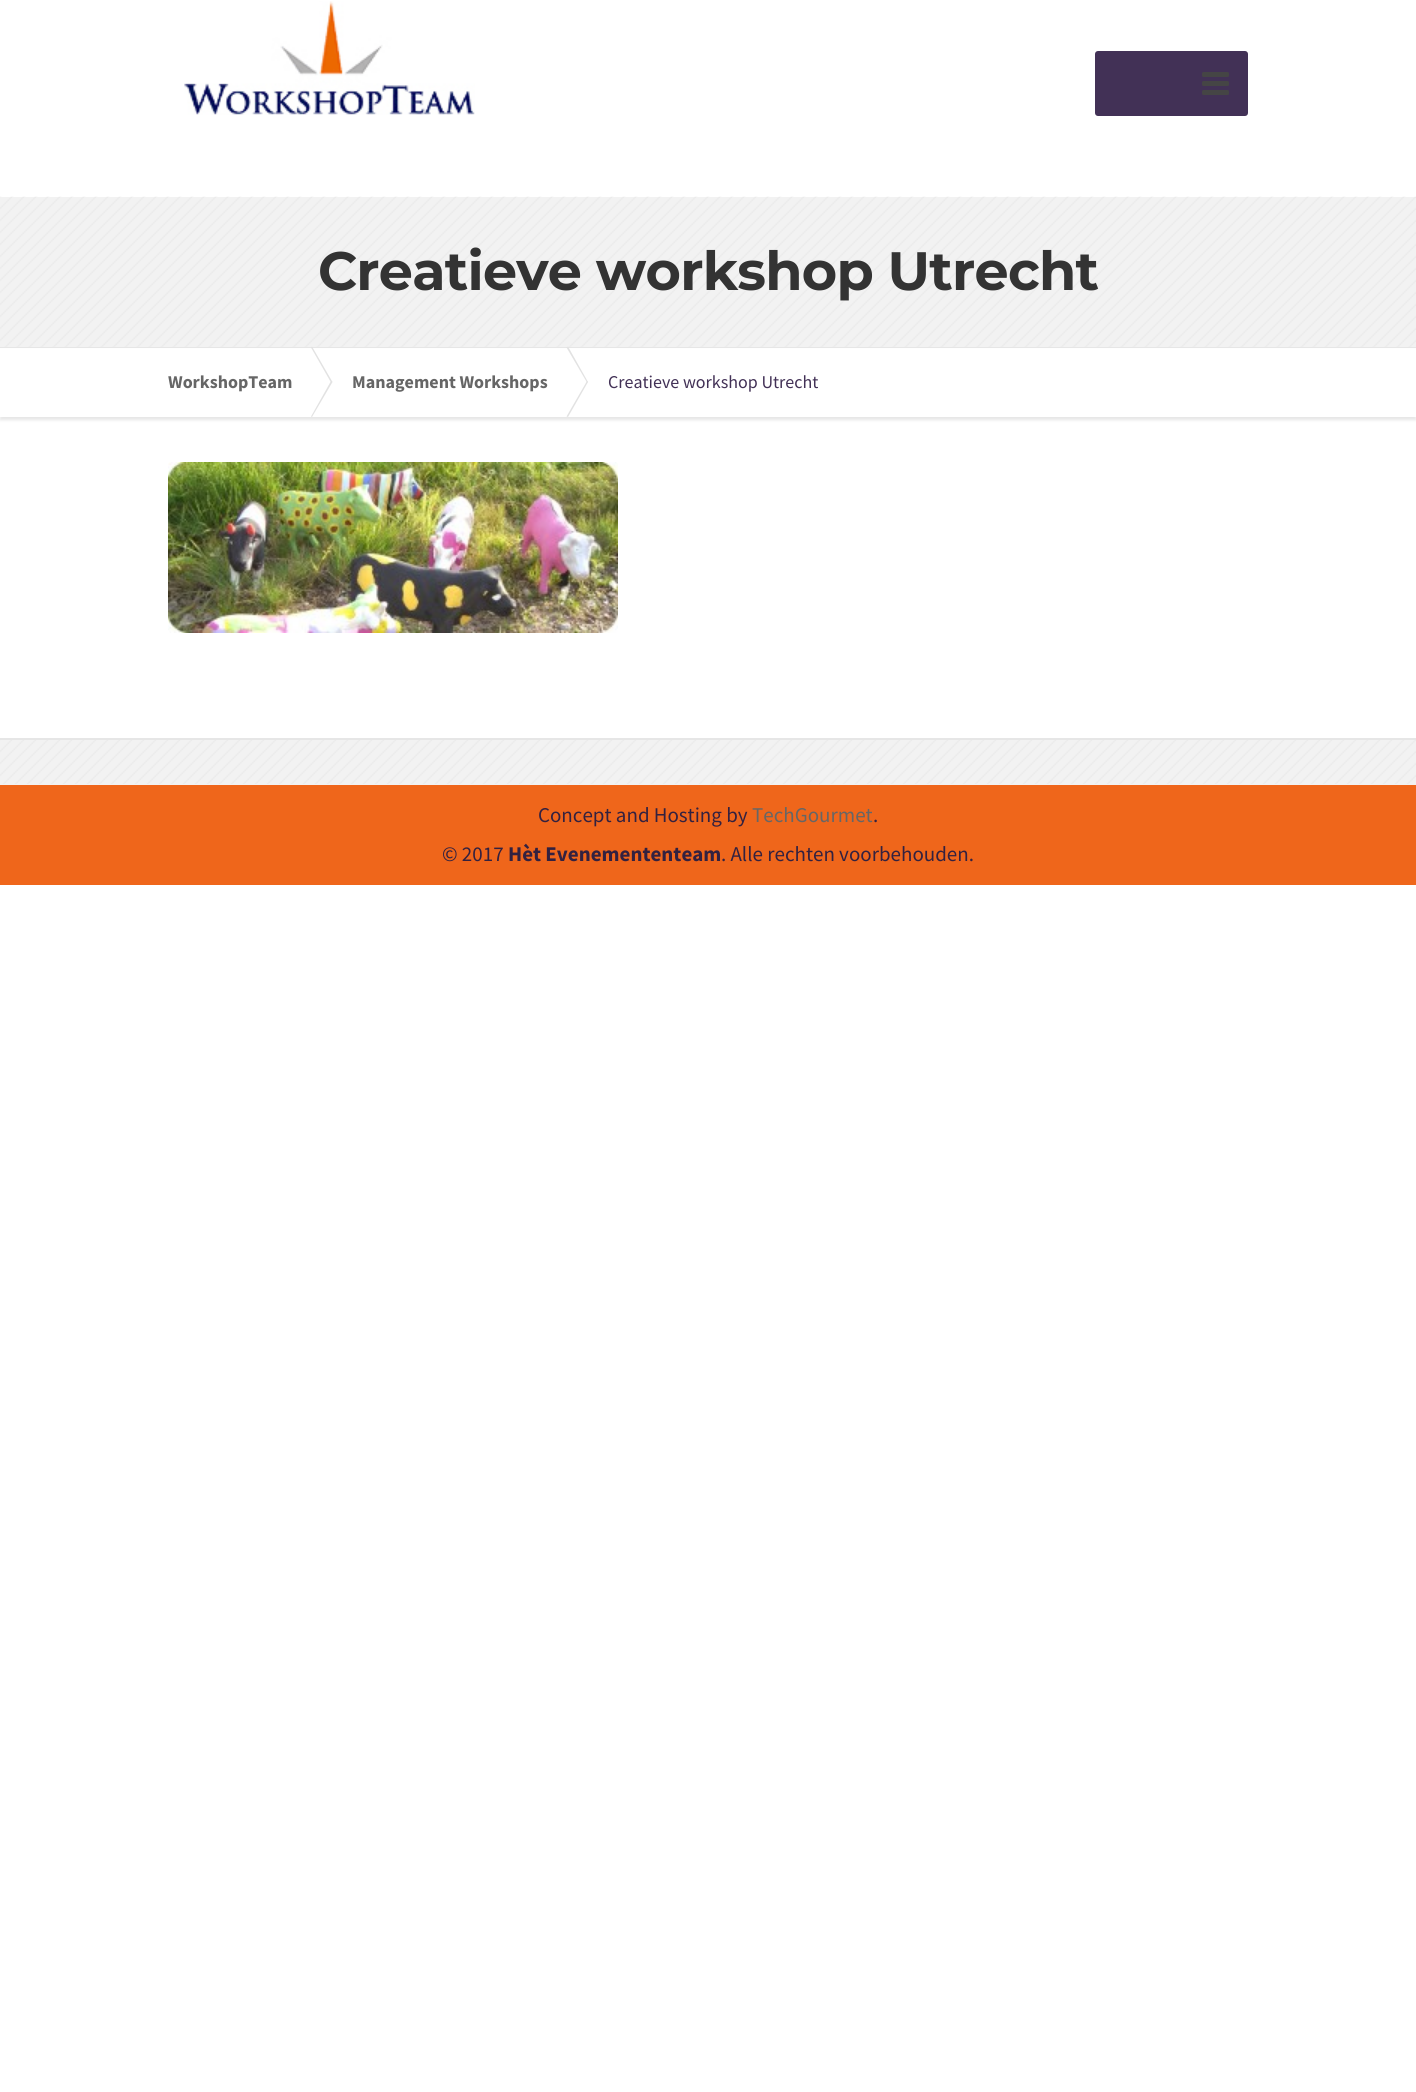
import math
import cairo

surface = cairo.ImageSurface(cairo.Format.RGB24, 1416, 2092)
ctx = cairo.Context(surface)
options = cairo.FontOptions()
options.set_hint_metrics(cairo.HintMetrics.OFF)
options.set_hint_style(cairo.HintStyle.NONE)
ctx.set_font_options(options)
ctx.set_miter_limit(4)


def ink(r, g, b):
    ctx.set_source_rgb(r / 255, g / 255, b / 255)


def write(x, y, s, family, size, color, bold=False, italic=False):
    ctx.select_font_face(family, cairo.FontSlant.ITALIC if italic else cairo.FontSlant.NORMAL, cairo.FontWeight.BOLD if bold else cairo.FontWeight.NORMAL)
    ctx.set_font_size(size)
    ink(*color)
    ctx.move_to(x, y)
    ctx.show_text(s)


def write_spaced(x, y, s, letter, word):
    ctx.move_to(x, y)
    for ch in s:
        ctx.show_text(ch)
        ctx.rel_move_to(letter + word * (ch == ' '), 0)


def block(x, y, w, h, *color):
    ink(*color)
    ctx.rectangle(x, y, w, h)
    ctx.fill()


def round_path(x, y, w, h, r):
    ctx.new_sub_path()
    for i, (u, v) in enumerate([(x + w - r, y + h - r), (x + r, y + h - r), (x + r, y + r), (x + w - r, y + r)]):
        ctx.arc(u, v, r, i * math.pi / 2, (i + 1) * math.pi / 2)
    ctx.close_path()


def blur_box(x, y, w, h, r, blur, alpha):
    ctx.push_group_with_content(cairo.Content.ALPHA)
    ctx.set_operator(cairo.Operator.SOURCE)
    for i in range(15, -16, -2):
        e = blur * i / 6
        if min(w, h) + 2 * e > 0:
            ctx.set_source_rgba(0, 0, 0, alpha * math.erfc((i - 1) / 8.5) / 2)
            round_path(x - e, y - e, w + 2 * e, h + 2 * e, max(0, min(r + e + blur * .6, min(w, h) / 2 + e)))
            ctx.fill()
    ctx.mask(ctx.pop_group())


def paste(path, x, y, w, h):
    ctx.save()
    ctx.set_source_surface(cairo.ImageSurface.create_from_png(path), x, y)
    ctx.rectangle(x, y, w, h)
    ctx.fill()
    ctx.restore()


s1 = dict(family="Source Sans Pro", size=18, color=(102, 102, 102), bold=True)
s2 = dict(family="Source Sans Pro", size=18, color=(66, 49, 86))
s3 = dict(family="Source Sans Pro", size=21, color=(51, 33, 64))
s4 = dict(family="Source Sans Pro", size=21, color=(102, 102, 102))
s5 = dict(family="Source Sans Pro", size=21, color=(51, 33, 64), bold=True)

ink(255, 255, 255)
ctx.paint()
paste("pic1.png", 184, 1, 291, 114)
ink(66, 49, 86)
round_path(1095, 51, 153, 65, 3)
ctx.fill()
ink(69, 69, 69)
round_path(1202, 72, 27, 5, 1.5)
ctx.fill()
round_path(1202, 81, 27, 5, 1.5)
ctx.fill()
round_path(1202, 90, 27, 5, 1.5)
ctx.fill()
block(0, 197, 1416, 150, 242, 242, 242)
paste("pic2.png", 0, 196, 1416, 151)
block(0, 347, 1416, 1, 230, 230, 230)
ctx.select_font_face("Montserrat", cairo.FontSlant.NORMAL, cairo.FontWeight.BOLD)
ctx.set_font_size(54)
ink(51, 51, 51)
write_spaced(318, 290, "Creatieve workshop Utrecht", -0.75, 0)
ink(230, 230, 230)
blur_box(0, 351, 1416, 69, 0, 1.5, 1)
block(0, 349, 1416, 68, 255, 255, 255)
write(168, 388, "WorkshopTeam", **s1)
ink(226, 226, 226)
ctx.new_path()
ctx.move_to(311, 347.5)
ctx.line_to(312, 346.5)
ctx.line_to(332.5, 382)
ctx.line_to(331, 382.5)
ctx.close_path()
ctx.fill()
ctx.new_path()
ctx.move_to(331, 381)
ctx.line_to(332.5, 382)
ctx.line_to(312, 417)
ctx.line_to(311, 416.5)
ctx.close_path()
ctx.fill()
write(352, 388, "Management Workshops", **s1)
ink(226, 226, 226)
ctx.new_path()
ctx.move_to(566.5, 347.5)
ctx.line_to(568, 346.5)
ctx.line_to(588, 382)
ctx.line_to(587, 382.5)
ctx.close_path()
ctx.fill()
ctx.new_path()
ctx.move_to(587, 381)
ctx.line_to(588, 382)
ctx.line_to(568, 417)
ctx.line_to(566.5, 416.5)
ctx.close_path()
ctx.fill()
write(608, 388, "Creatieve workshop Utrecht", **s2)
paste("pic3.png", 168, 462, 450, 171)
block(0, 740, 1416, 45, 242, 242, 242)
paste("pic4.png", 0, 740, 1416, 44)
block(0, 738, 1416, 2, 230, 230, 230)
block(0, 785, 1416, 100, 239, 102, 27)
write(538, 822, "Concept and Hosting by", **s3)
write(752, 822, "TechGourmet", **s4)
write(873, 822, ".", **s3)
write(442, 861, "© 2017", **s3)
write(508, 861, "Hèt Evenemententeam", **s5)
write(721, 861, ". Alle rechten voorbehouden.", **s3)
surface.write_to_png("screenshot.png")
